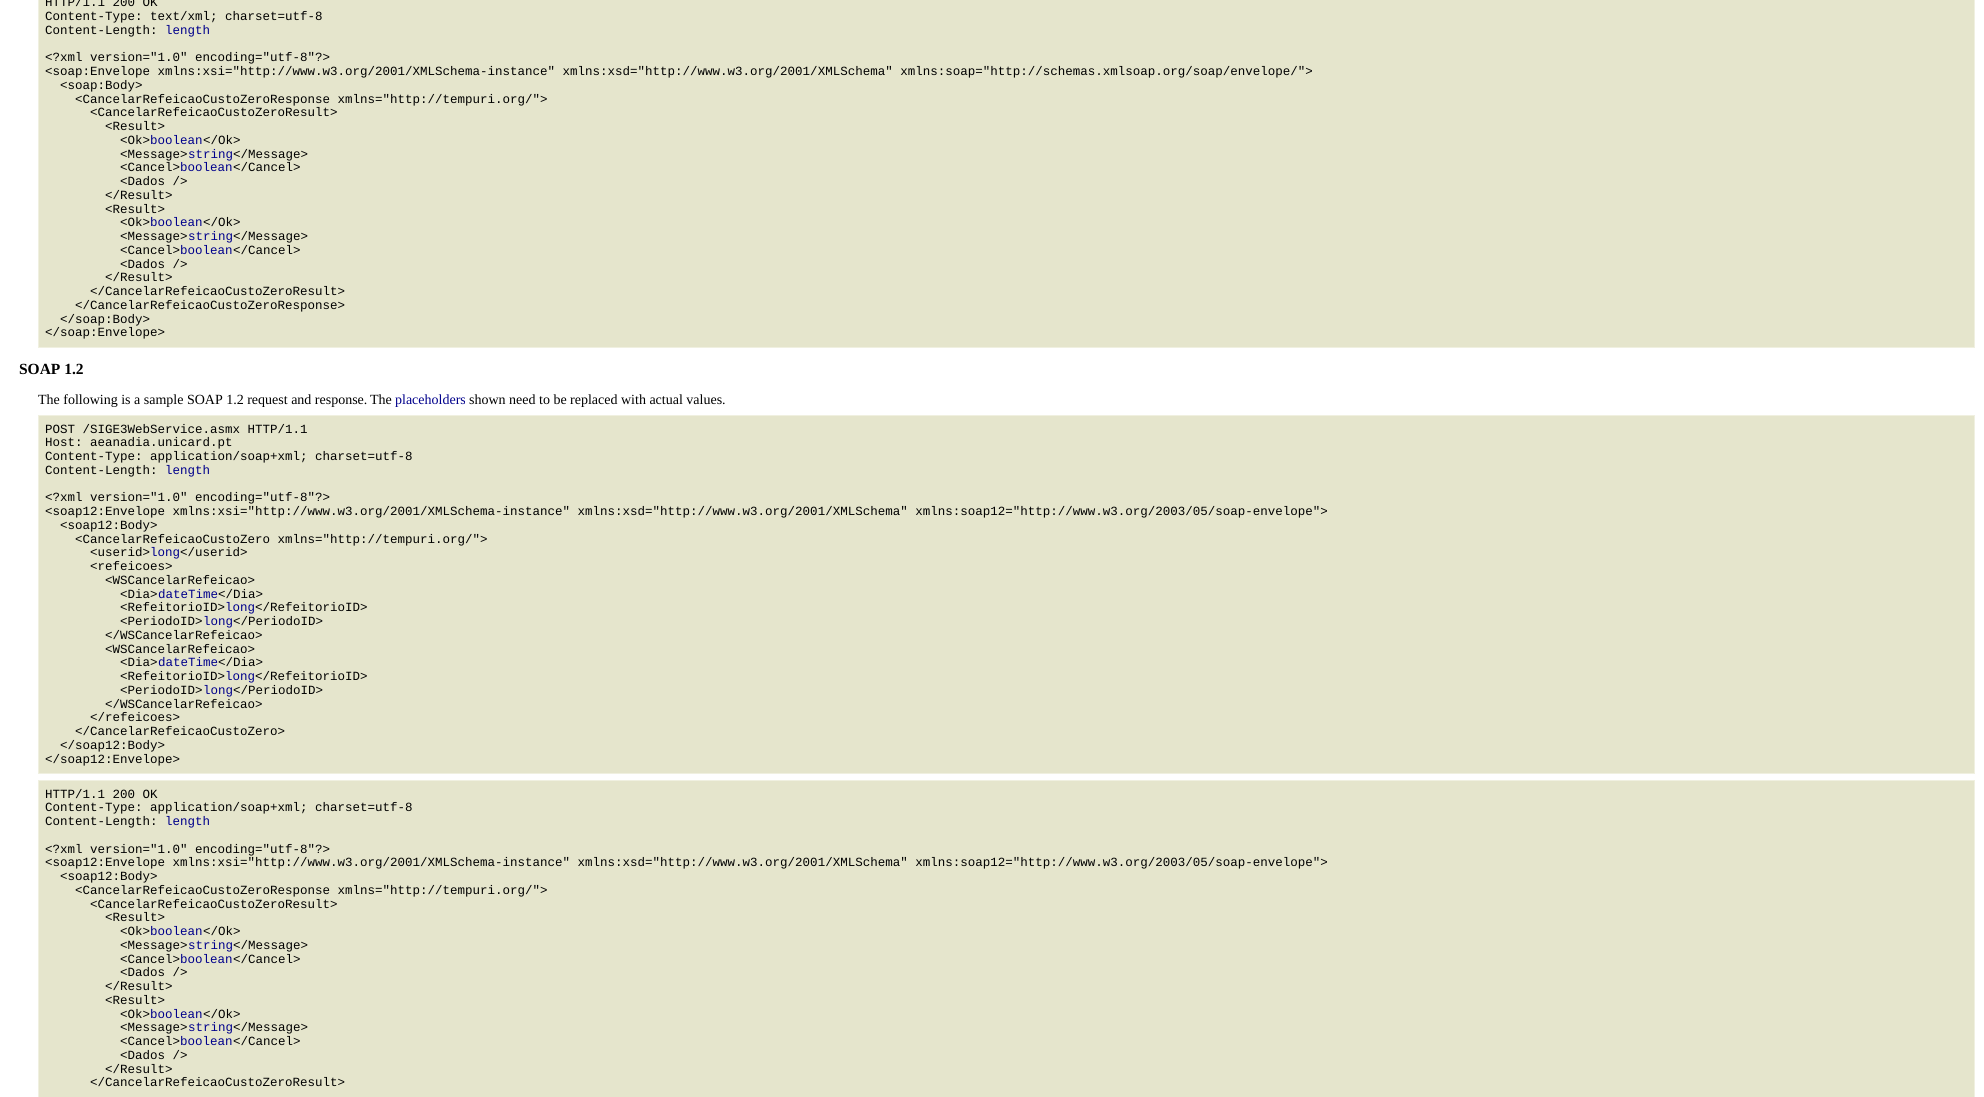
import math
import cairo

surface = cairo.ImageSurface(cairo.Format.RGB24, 1984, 1097)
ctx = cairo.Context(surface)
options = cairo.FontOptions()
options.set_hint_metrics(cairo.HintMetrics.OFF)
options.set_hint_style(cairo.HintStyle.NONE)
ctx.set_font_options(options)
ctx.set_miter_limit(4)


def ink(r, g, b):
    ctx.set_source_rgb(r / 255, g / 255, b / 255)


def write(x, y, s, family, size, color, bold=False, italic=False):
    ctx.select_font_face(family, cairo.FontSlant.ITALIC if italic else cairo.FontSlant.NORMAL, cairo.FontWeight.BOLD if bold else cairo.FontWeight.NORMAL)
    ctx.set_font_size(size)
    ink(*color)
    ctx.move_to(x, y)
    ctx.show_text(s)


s1 = dict(family="Liberation Mono", size=12.5, color=(0, 0, 0))
s2 = dict(family="Liberation Mono", size=12.5, color=(0, 0, 139))
s3 = dict(family="Liberation Serif", size=15.5, color=(0, 0, 0), bold=True)
s4 = dict(family="Liberation Serif", size=14, color=(0, 0, 0))
s5 = dict(family="Liberation Serif", size=14, color=(0, 0, 139))

ink(255, 255, 255)
ctx.paint()
ink(229, 229, 204)
ctx.rectangle(38.5, -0.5, 1936, 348)
ctx.fill_preserve()
ink(240, 240, 224)
ctx.set_line_width(1)
ctx.stroke()
write(45, 6, "HTTP/1.1 200 OK", **s1)
write(45, 20, "Content-Type: text/xml; charset=utf-8", **s1)
write(45, 34, "Content-Length:", **s1)
write(165, 34, "length", **s2)
write(45, 61, "<?xml version=\"1.0\" encoding=\"utf-8\"?>", **s1)
write(45, 75, "<soap:Envelope xmlns:xsi=\"http://www.w3.org/2001/XMLSchema-instance\" xmlns:xsd=\"http://www.w3.org/2001/XMLSchema\" xmlns:soap=\"http://schemas.xmlsoap.org/soap/envelope/\">", **s1)
write(60, 89, "<soap:Body>", **s1)
write(75, 103, "<CancelarRefeicaoCustoZeroResponse xmlns=\"http://tempuri.org/\">", **s1)
write(90, 116, "<CancelarRefeicaoCustoZeroResult>", **s1)
write(105, 130, "<Result>", **s1)
write(120, 144, "<Ok>", **s1)
write(150, 144, "boolean", **s2)
write(203, 144, "</Ok>", **s1)
write(120, 158, "<Message>", **s1)
write(188, 158, "string", **s2)
write(233, 158, "</Message>", **s1)
write(120, 171, "<Cancel>", **s1)
write(180, 171, "boolean", **s2)
write(233, 171, "</Cancel>", **s1)
write(120, 185, "<Dados />", **s1)
write(105, 199, "</Result>", **s1)
write(105, 213, "<Result>", **s1)
write(120, 226, "<Ok>", **s1)
write(150, 226, "boolean", **s2)
write(203, 226, "</Ok>", **s1)
write(120, 240, "<Message>", **s1)
write(188, 240, "string", **s2)
write(233, 240, "</Message>", **s1)
write(120, 254, "<Cancel>", **s1)
write(180, 254, "boolean", **s2)
write(233, 254, "</Cancel>", **s1)
write(120, 268, "<Dados />", **s1)
write(105, 281, "</Result>", **s1)
write(90, 295, "</CancelarRefeicaoCustoZeroResult>", **s1)
write(75, 309, "</CancelarRefeicaoCustoZeroResponse>", **s1)
write(60, 323, "</soap:Body>", **s1)
write(45, 336, "</soap:Envelope>", **s1)
write(19, 374, "SOAP 1.2", **s3)
write(38, 404, "The following is a sample SOAP 1.2 request and response.", **s4)
write(370, 404, "The", **s4)
write(395, 404, "placeholders", **s5)
write(469, 404, "shown need to be replaced with actual values.", **s4)
ink(229, 229, 204)
ctx.rectangle(38.5, 415.5, 1936, 358)
ctx.fill_preserve()
ink(240, 240, 224)
ctx.stroke()
write(45, 433, "POST /SIGE3WebService.asmx HTTP/1.1", **s1)
write(45, 446, "Host: aeanadia.unicard.pt", **s1)
write(45, 460, "Content-Type: application/soap+xml; charset=utf-8", **s1)
write(45, 474, "Content-Length:", **s1)
write(165, 474, "length", **s2)
write(45, 501, "<?xml version=\"1.0\" encoding=\"utf-8\"?>", **s1)
write(45, 515, "<soap12:Envelope xmlns:xsi=\"http://www.w3.org/2001/XMLSchema-instance\" xmlns:xsd=\"http://www.w3.org/2001/XMLSchema\" xmlns:soap12=\"http://www.w3.org/2003/05/soap-envelope\">", **s1)
write(60, 529, "<soap12:Body>", **s1)
write(75, 543, "<CancelarRefeicaoCustoZero xmlns=\"http://tempuri.org/\">", **s1)
write(90, 556, "<userid>", **s1)
write(150, 556, "long", **s2)
write(180, 556, "</userid>", **s1)
write(90, 570, "<refeicoes>", **s1)
write(105, 584, "<WSCancelarRefeicao>", **s1)
write(120, 598, "<Dia>", **s1)
write(158, 598, "dateTime", **s2)
write(218, 598, "</Dia>", **s1)
write(120, 611, "<RefeitorioID>", **s1)
write(225, 611, "long", **s2)
write(255, 611, "</RefeitorioID>", **s1)
write(120, 625, "<PeriodoID>", **s1)
write(203, 625, "long", **s2)
write(233, 625, "</PeriodoID>", **s1)
write(105, 639, "</WSCancelarRefeicao>", **s1)
write(105, 653, "<WSCancelarRefeicao>", **s1)
write(120, 666, "<Dia>", **s1)
write(158, 666, "dateTime", **s2)
write(218, 666, "</Dia>", **s1)
write(120, 680, "<RefeitorioID>", **s1)
write(225, 680, "long", **s2)
write(255, 680, "</RefeitorioID>", **s1)
write(120, 694, "<PeriodoID>", **s1)
write(203, 694, "long", **s2)
write(233, 694, "</PeriodoID>", **s1)
write(105, 708, "</WSCancelarRefeicao>", **s1)
write(90, 721, "</refeicoes>", **s1)
write(75, 735, "</CancelarRefeicaoCustoZero>", **s1)
write(60, 749, "</soap12:Body>", **s1)
write(45, 763, "</soap12:Envelope>", **s1)
ink(229, 229, 204)
ctx.rectangle(38.5, 780.5, 1936, 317)
ctx.fill_preserve()
ink(240, 240, 224)
ctx.stroke()
write(45, 798, "HTTP/1.1 200 OK", **s1)
write(45, 811, "Content-Type: application/soap+xml; charset=utf-8", **s1)
write(45, 825, "Content-Length:", **s1)
write(165, 825, "length", **s2)
write(45, 853, "<?xml version=\"1.0\" encoding=\"utf-8\"?>", **s1)
write(45, 866, "<soap12:Envelope xmlns:xsi=\"http://www.w3.org/2001/XMLSchema-instance\" xmlns:xsd=\"http://www.w3.org/2001/XMLSchema\" xmlns:soap12=\"http://www.w3.org/2003/05/soap-envelope\">", **s1)
write(60, 880, "<soap12:Body>", **s1)
write(75, 894, "<CancelarRefeicaoCustoZeroResponse xmlns=\"http://tempuri.org/\">", **s1)
write(90, 908, "<CancelarRefeicaoCustoZeroResult>", **s1)
write(105, 921, "<Result>", **s1)
write(120, 935, "<Ok>", **s1)
write(150, 935, "boolean", **s2)
write(203, 935, "</Ok>", **s1)
write(120, 949, "<Message>", **s1)
write(188, 949, "string", **s2)
write(233, 949, "</Message>", **s1)
write(120, 963, "<Cancel>", **s1)
write(180, 963, "boolean", **s2)
write(233, 963, "</Cancel>", **s1)
write(120, 976, "<Dados />", **s1)
write(105, 990, "</Result>", **s1)
write(105, 1004, "<Result>", **s1)
write(120, 1018, "<Ok>", **s1)
write(150, 1018, "boolean", **s2)
write(203, 1018, "</Ok>", **s1)
write(120, 1031, "<Message>", **s1)
write(188, 1031, "string", **s2)
write(233, 1031, "</Message>", **s1)
write(120, 1045, "<Cancel>", **s1)
write(180, 1045, "boolean", **s2)
write(233, 1045, "</Cancel>", **s1)
write(120, 1059, "<Dados />", **s1)
write(105, 1073, "</Result>", **s1)
write(90, 1086, "</CancelarRefeicaoCustoZeroResult>", **s1)
surface.write_to_png("screenshot.png")
